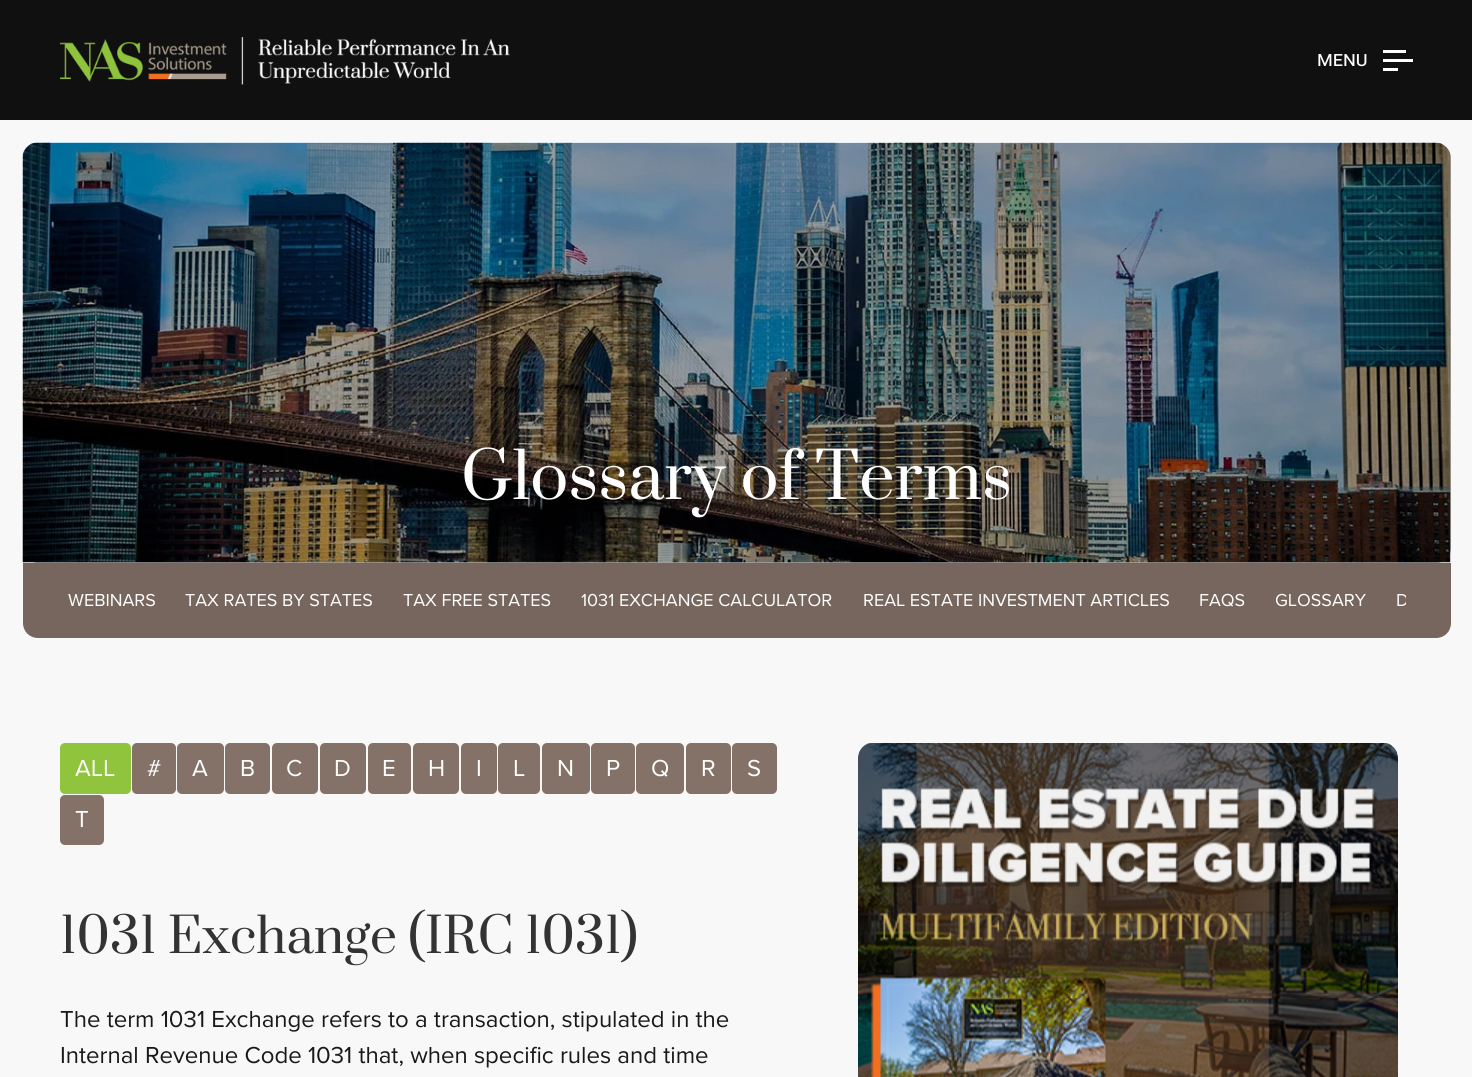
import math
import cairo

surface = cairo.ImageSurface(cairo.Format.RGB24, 1472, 1077)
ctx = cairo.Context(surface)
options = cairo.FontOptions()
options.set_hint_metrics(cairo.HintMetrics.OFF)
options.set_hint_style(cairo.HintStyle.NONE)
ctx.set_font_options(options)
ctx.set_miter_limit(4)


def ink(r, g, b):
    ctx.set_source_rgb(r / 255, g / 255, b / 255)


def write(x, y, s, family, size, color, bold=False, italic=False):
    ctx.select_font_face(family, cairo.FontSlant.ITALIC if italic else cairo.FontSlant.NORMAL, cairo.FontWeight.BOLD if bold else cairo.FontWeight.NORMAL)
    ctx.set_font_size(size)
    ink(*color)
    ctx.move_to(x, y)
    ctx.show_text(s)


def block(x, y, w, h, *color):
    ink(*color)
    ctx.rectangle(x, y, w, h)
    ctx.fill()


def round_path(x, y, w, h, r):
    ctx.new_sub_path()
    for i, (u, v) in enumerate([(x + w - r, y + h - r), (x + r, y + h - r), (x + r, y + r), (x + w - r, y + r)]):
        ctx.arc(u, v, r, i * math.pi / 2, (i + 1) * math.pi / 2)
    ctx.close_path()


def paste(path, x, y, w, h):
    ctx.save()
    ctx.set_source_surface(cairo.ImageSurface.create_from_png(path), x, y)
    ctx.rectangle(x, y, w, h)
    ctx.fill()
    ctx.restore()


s1 = dict(family="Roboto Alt", size=21, color=(254, 254, 254))
s2 = dict(family="Prata", size=63, color=(254, 254, 254))
s3 = dict(family="Proxima Nova", size=18, color=(254, 254, 254))
s4 = dict(family="Proxima Nova", size=24, color=(254, 254, 254))
s5 = dict(family="Prata", size=48, color=(51, 51, 51))
s6 = dict(family="Proxima Nova", size=24, color=(25, 25, 25))

ink(248, 248, 248)
ctx.paint()
block(0, 0, 1472, 120, 16, 16, 16)
paste("pic1.png", 60, 37, 450, 48)
write(1317, 66, "MENU", **s1)
block(1383, 50, 23, 3, 254, 254, 254)
block(1383, 59, 30, 3, 254, 254, 254)
block(1383, 68, 15, 3, 254, 254, 254)
paste("pic2.png", 22, 142, 1429, 421)
ctx.set_source_rgba(0, 0, 0, 0.35)
round_path(23, 143, 1428, 420, 15)
ctx.fill()
write(461, 499, "Glossary of Terms", **s2)
ink(118, 102, 93)
ctx.new_path()
ctx.move_to(23, 563)
ctx.line_to(1451, 563)
ctx.line_to(1451, 623)
ctx.curve_to(1451, 631.5, 1444.5, 638, 1436, 638)
ctx.line_to(38, 638)
ctx.curve_to(29.5, 638, 23, 631.5, 23, 623)
ctx.close_path()
ctx.fill()
write(68, 606, "WEBINARS", **s3)
write(185, 606, "TAX RATES BY STATES", **s3)
write(403, 606, "TAX FREE STATES", **s3)
write(581, 606, "1031 EXCHANGE CALCULATOR", **s3)
write(863, 606, "REAL ESTATE INVESTMENT ARTICLES", **s3)
write(1199, 606, "FAQS", **s3)
write(1275, 606, "GLOSSARY", **s3)
ctx.save()
ctx.rectangle(68, 587, 1338, 27)
ctx.clip()
write(1396, 606, "D", **s3)
ctx.restore()
ink(144, 196, 61)
round_path(60, 743, 71, 51, 5)
ctx.fill()
write(75, 776, "ALL", **s4)
ink(132, 114, 104)
round_path(132, 743, 44, 51, 5)
ctx.fill()
write(147, 776, "#", **s4)
ink(132, 114, 104)
round_path(177, 743, 47, 51, 5)
ctx.fill()
write(192, 776, "A", **s4)
ink(132, 114, 104)
round_path(225, 743, 45, 51, 5)
ctx.fill()
write(240, 776, "B", **s4)
ink(132, 114, 104)
round_path(272, 743, 46, 51, 5)
ctx.fill()
write(286, 776, "C", **s4)
ink(132, 114, 104)
round_path(320, 743, 46, 51, 5)
ctx.fill()
write(334, 776, "D", **s4)
ink(132, 114, 104)
round_path(368, 743, 43, 51, 5)
ctx.fill()
write(382, 776, "E", **s4)
ink(132, 114, 104)
round_path(413, 743, 46, 51, 5)
ctx.fill()
write(428, 776, "H", **s4)
ink(132, 114, 104)
round_path(461, 743, 36, 51, 5)
ctx.fill()
write(476, 776, "I", **s4)
ink(132, 114, 104)
round_path(498, 743, 42, 51, 5)
ctx.fill()
write(513, 776, "L", **s4)
ink(132, 114, 104)
round_path(542, 743, 48, 51, 5)
ctx.fill()
write(557, 776, "N", **s4)
ink(132, 114, 104)
round_path(591, 743, 44, 51, 5)
ctx.fill()
write(606, 776, "P", **s4)
ink(132, 114, 104)
round_path(636, 743, 48, 51, 5)
ctx.fill()
write(651, 776, "Q", **s4)
ink(132, 114, 104)
round_path(686, 743, 45, 51, 5)
ctx.fill()
write(701, 776, "R", **s4)
ink(132, 114, 104)
round_path(732, 743, 45, 51, 5)
ctx.fill()
write(747, 776, "S", **s4)
ink(132, 114, 104)
round_path(60, 795, 44, 50, 5)
ctx.fill()
write(75, 827, "T", **s4)
write(60, 953, "1031 Exchange (IRC 1031)", **s5)
write(60, 1027, "The term 1031 Exchange refers to a transaction, stipulated in the", **s6)
write(60, 1063, "Internal Revenue Code 1031 that, when specific rules and time", **s6)
ink(239, 239, 239)
ctx.new_path()
ctx.move_to(873, 743)
ctx.line_to(1383, 743)
ctx.curve_to(1391.5, 743, 1398, 749.5, 1398, 758)
ctx.line_to(1398, 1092)
ctx.line_to(858, 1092)
ctx.line_to(858, 758)
ctx.curve_to(858, 749.5, 864.5, 743, 873, 743)
ctx.close_path()
ctx.fill()
paste("pic3.png", 858, 743, 540, 334)
surface.write_to_png("screenshot.png")
